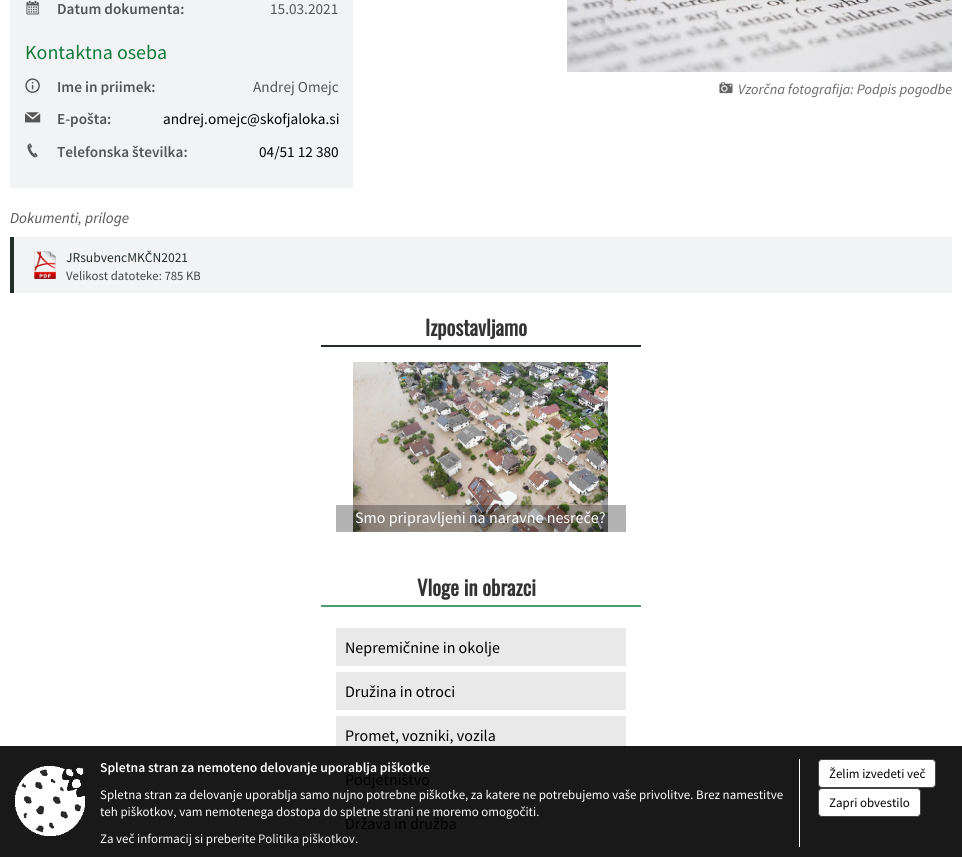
import math
import cairo

surface = cairo.ImageSurface(cairo.Format.RGB24, 962, 857)
ctx = cairo.Context(surface)
options = cairo.FontOptions()
options.set_hint_metrics(cairo.HintMetrics.OFF)
options.set_hint_style(cairo.HintStyle.NONE)
ctx.set_font_options(options)
ctx.set_miter_limit(4)


def ink(r, g, b):
    ctx.set_source_rgb(r / 255, g / 255, b / 255)


def write(x, y, s, family, size, color, bold=False, italic=False):
    ctx.select_font_face(family, cairo.FontSlant.ITALIC if italic else cairo.FontSlant.NORMAL, cairo.FontWeight.BOLD if bold else cairo.FontWeight.NORMAL)
    ctx.set_font_size(size)
    ink(*color)
    ctx.move_to(x, y)
    ctx.show_text(s)


def block(x, y, w, h, *color):
    ink(*color)
    ctx.rectangle(x, y, w, h)
    ctx.fill()


def round_path(x, y, w, h, r):
    ctx.new_sub_path()
    for i, (u, v) in enumerate([(x + w - r, y + h - r), (x + r, y + h - r), (x + r, y + r), (x + w - r, y + r)]):
        ctx.arc(u, v, r, i * math.pi / 2, (i + 1) * math.pi / 2)
    ctx.close_path()


def paste(path, x, y, w, h):
    ctx.save()
    ctx.set_source_surface(cairo.ImageSurface.create_from_png(path), x, y)
    ctx.rectangle(x, y, w, h)
    ctx.fill()
    ctx.restore()


s1 = dict(family="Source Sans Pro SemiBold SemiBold", size=15.25, color=(85, 85, 85))
s2 = dict(family="Source Sans Pro", size=15.25, color=(85, 85, 85))
s3 = dict(family="Source Sans Pro", size=20, color=(19, 122, 58))
s4 = dict(family="Source Sans Pro", size=15.25, color=(0, 0, 0))
s5 = dict(family="Source Sans Pro", size=14.4, color=(102, 102, 102), italic=True)
s6 = dict(family="Source Sans Pro", size=15.25, color=(85, 85, 85), italic=True)
s7 = dict(family="Source Sans Pro", size=13.5, color=(36, 46, 40))
s8 = dict(family="Source Sans Pro", size=12.75, color=(68, 68, 68))
s9 = dict(family="Oswald", size=20.75, color=(51, 51, 51), bold=True)
s10 = dict(family="Source Sans Pro", size=16, color=(255, 255, 255))
s11 = dict(family="Source Sans Pro", size=16, color=(0, 0, 0))
s12 = dict(family="Source Sans Pro SemiBold SemiBold", size=13.6, color=(255, 255, 255))
s13 = dict(family="Source Sans Pro", size=12.92, color=(255, 255, 255))
s14 = dict(family="Source Sans Pro", size=12.92, color=(238, 238, 238))
s15 = dict(family="Source Sans Pro", size=12.92, color=(0, 0, 0))

ink(255, 255, 255)
ctx.paint()
block(0, 746, 962, 111, 25, 25, 25)
block(10, 0, 343, 188, 242, 243, 245)
paste("pic1.png", 26, 0, 13, 15)
write(57, 14, "Datum dokumenta:", **s1)
write(270, 14, "15.03.2021", **s2)
write(25, 59, "Kontaktna oseba", **s3)
paste("pic2.png", 25, 78, 15, 15)
write(57, 92, "Ime in priimek:", **s1)
write(253, 92, "Andrej Omejc", **s2)
paste("pic3.png", 25, 112, 16, 11)
write(57, 124, "E-pošta:", **s1)
write(163, 124, "andrej.omejc@skofjaloka.si", **s4)
paste("pic4.png", 27, 143, 11, 15)
write(57, 157, "Telefonska številka:", **s1)
write(259, 157, "04/51 12 380", **s4)
paste("pic5.png", 567, 0, 385, 72)
paste("pic6.png", 719, 82, 14, 12)
write(738, 94, "Vzorčna fotografija: Podpis pogodbe", **s5)
write(10, 223, "Dokumenti, priloge", **s6)
block(14, 237, 938, 56, 242, 243, 245)
block(10, 237, 4, 56, 36, 46, 40)
paste("pic7.png", 34, 251, 22, 28)
write(66, 262, "JRsubvencMKČN2021", **s7)
write(66, 280, "Velikost datoteke: 785 KB", **s8)
block(321, 345, 320, 2, 36, 46, 40)
write(425, 336, "Izpostavljamo", **s9)
paste("pic8.png", 353, 362, 255, 170)
ctx.set_source_rgba(0, 0, 0, 0.3)
ctx.rectangle(336, 505, 290, 27)
ctx.fill()
write(355, 523, "Smo pripravljeni na naravne nesreče?", **s10)
block(321, 605, 320, 2, 78, 155, 107)
write(417, 596, "Vloge in obrazci", **s9)
block(336, 628, 290, 38, 233, 233, 233)
write(345, 653, "Nepremičnine in okolje", **s11)
block(336, 672, 290, 38, 233, 233, 233)
write(345, 697, "Družina in otroci", **s11)
block(336, 716, 290, 30, 233, 233, 233)
write(345, 741, "Promet, vozniki, vozila", **s11)
write(345, 785, "Podjetništvo", **s11)
write(345, 829, "Država in družba", **s11)
paste("pic9.png", 15, 766, 70, 70)
block(799, 759, 1, 88, 255, 255, 255)
write(100, 772, "Spletna stran za nemoteno delovanje uporablja piškotke", **s12)
write(100, 799, "Spletna stran za delovanje uporablja samo nujno potrebne piškotke, za katere ne potrebujemo vaše privolitve. Brez namestitve", **s13)
write(100, 816, "teh piškotkov, vam nemotenega dostopa do spletne strani ne moremo omogočiti.", **s13)
write(100, 843, "Za več informacij si preberite", **s13)
write(258, 843, "Politika piškotkov", **s14)
write(355, 843, ".", **s13)
round_path(818.5, 759.5, 117, 28, 3.5)
ctx.fill_preserve()
ink(68, 68, 68)
ctx.set_line_width(1)
ctx.stroke()
write(829, 778, "Želim izvedeti več", **s15)
ink(255, 255, 255)
round_path(818.5, 788.5, 102, 28, 3.5)
ctx.fill_preserve()
ink(68, 68, 68)
ctx.stroke()
write(829, 807, "Zapri obvestilo", **s15)
surface.write_to_png("screenshot.png")
